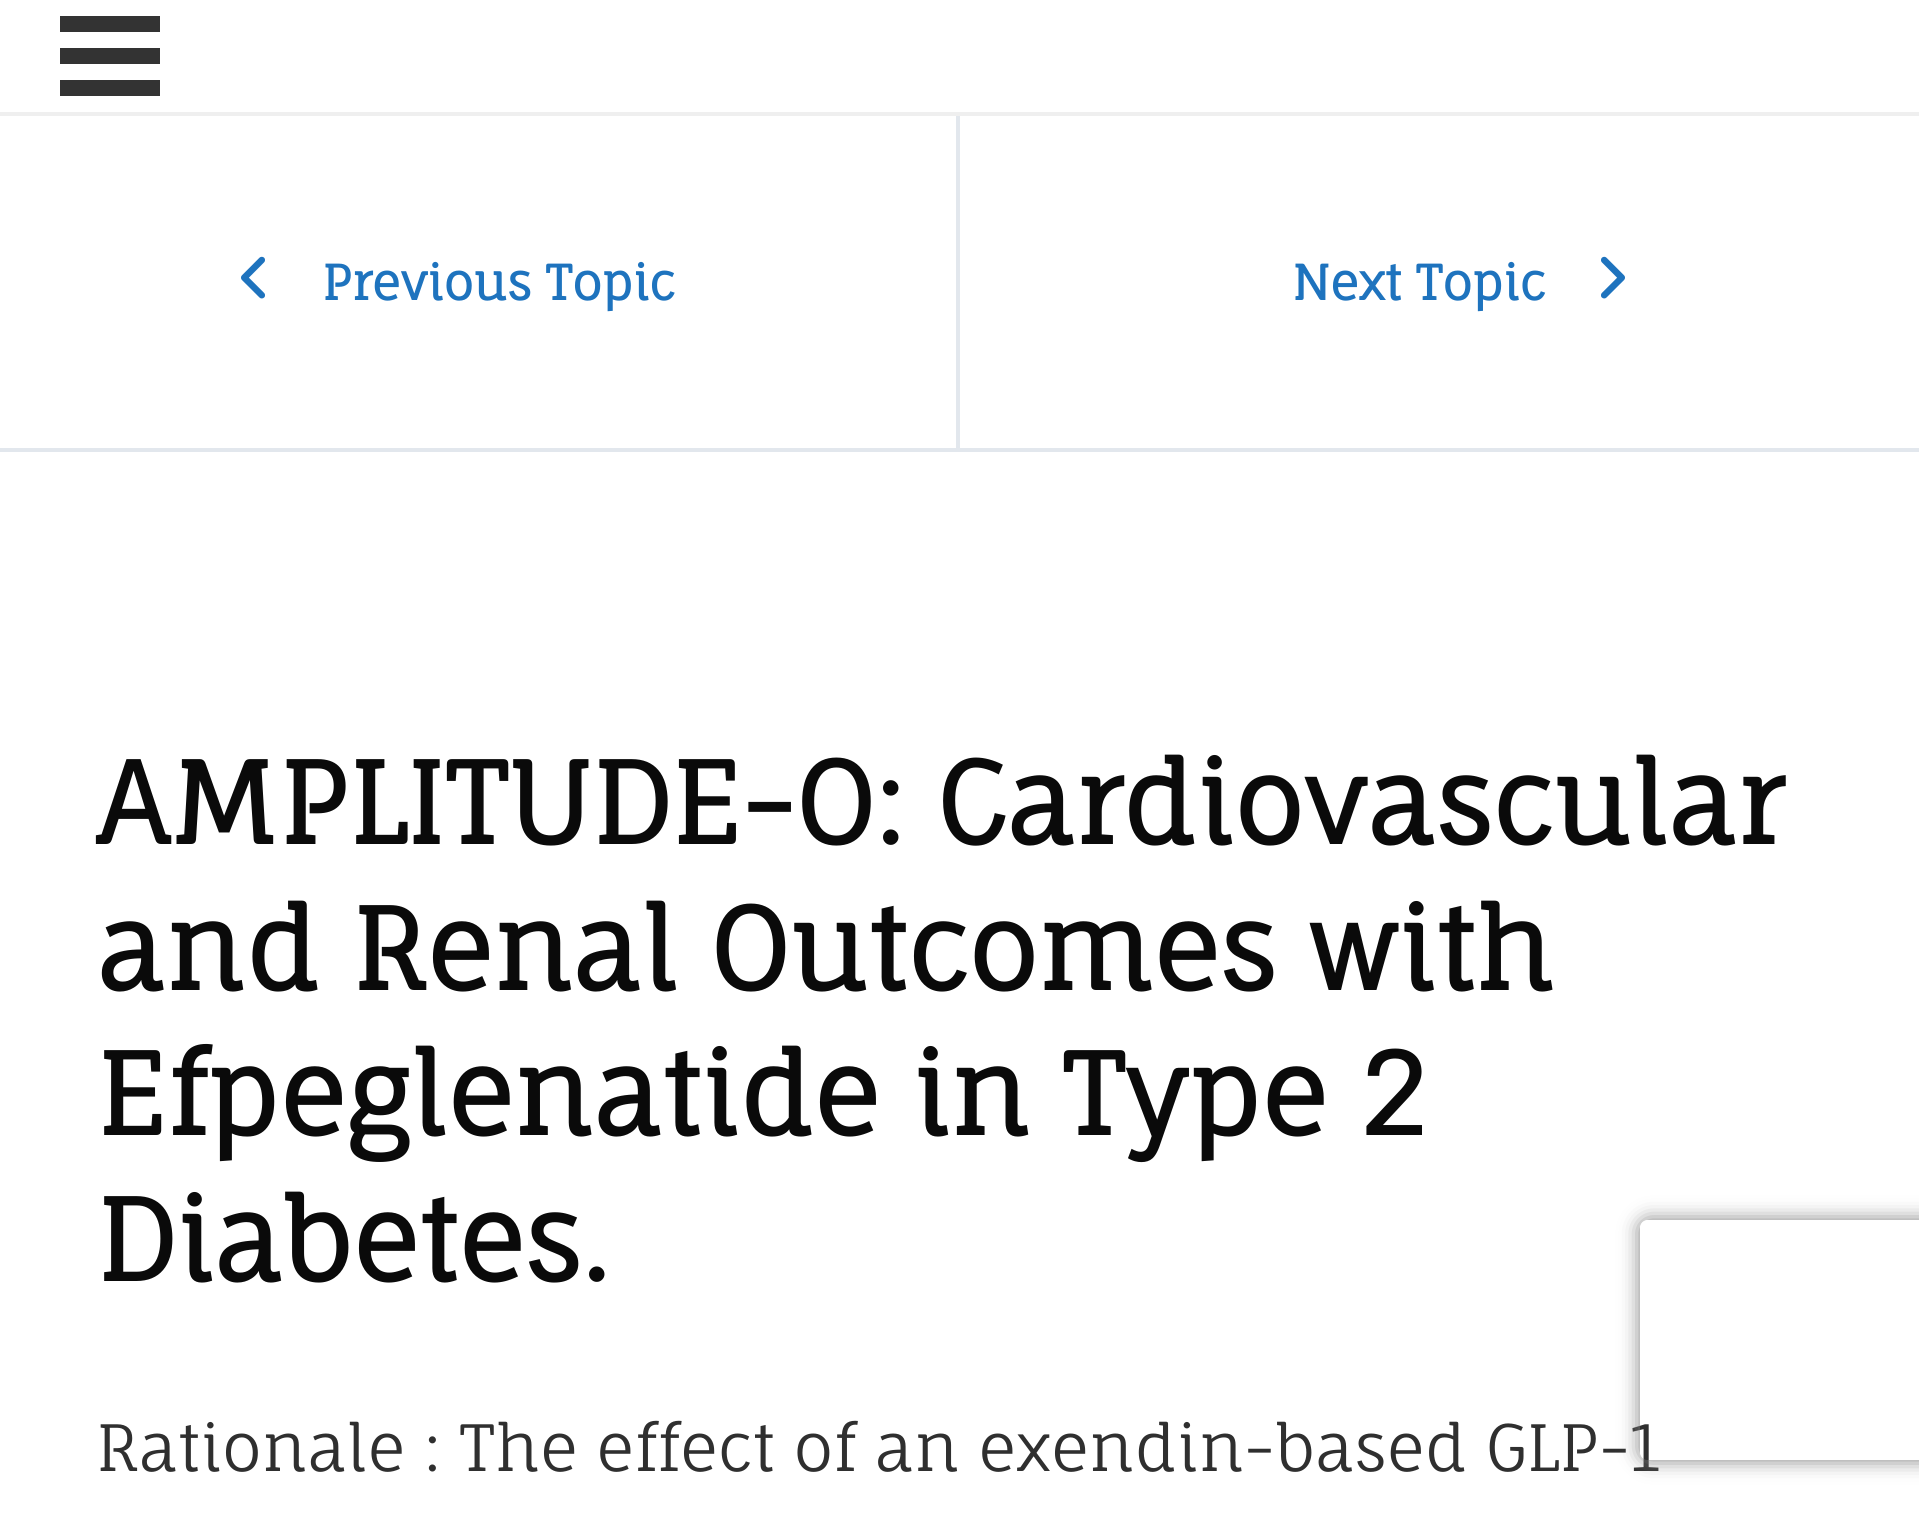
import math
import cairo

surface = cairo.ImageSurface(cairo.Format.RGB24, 1919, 1514)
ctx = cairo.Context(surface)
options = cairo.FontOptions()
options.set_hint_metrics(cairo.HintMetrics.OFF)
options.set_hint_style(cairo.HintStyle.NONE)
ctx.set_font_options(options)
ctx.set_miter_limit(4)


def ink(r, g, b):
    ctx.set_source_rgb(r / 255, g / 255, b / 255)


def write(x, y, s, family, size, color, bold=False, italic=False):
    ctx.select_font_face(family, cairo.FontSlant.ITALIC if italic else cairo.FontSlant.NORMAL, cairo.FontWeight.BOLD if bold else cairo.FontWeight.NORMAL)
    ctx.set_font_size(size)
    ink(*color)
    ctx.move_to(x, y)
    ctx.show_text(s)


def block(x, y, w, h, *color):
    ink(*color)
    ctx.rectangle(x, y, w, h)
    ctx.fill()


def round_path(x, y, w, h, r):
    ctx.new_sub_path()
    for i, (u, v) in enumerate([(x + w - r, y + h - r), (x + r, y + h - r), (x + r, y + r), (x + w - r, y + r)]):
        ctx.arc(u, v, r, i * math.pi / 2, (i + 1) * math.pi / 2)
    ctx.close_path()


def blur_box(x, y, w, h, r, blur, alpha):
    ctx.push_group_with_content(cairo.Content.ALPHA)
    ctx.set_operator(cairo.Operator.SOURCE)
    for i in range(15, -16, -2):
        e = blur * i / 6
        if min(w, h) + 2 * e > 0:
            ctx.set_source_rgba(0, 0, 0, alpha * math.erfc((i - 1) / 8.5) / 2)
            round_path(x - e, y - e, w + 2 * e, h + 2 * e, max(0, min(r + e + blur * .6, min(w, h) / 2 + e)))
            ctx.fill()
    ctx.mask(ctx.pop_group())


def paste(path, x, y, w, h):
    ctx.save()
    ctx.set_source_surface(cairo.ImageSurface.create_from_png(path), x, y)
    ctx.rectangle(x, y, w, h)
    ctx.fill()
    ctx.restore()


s1 = dict(family="Fauna One", size=48, color=(30, 115, 190), bold=True)
s2 = dict(family="Fauna One", size=112, color=(10, 10, 10), bold=True)
s3 = dict(family="Fauna One", size=64, color=(47, 47, 47))

ink(255, 255, 255)
ctx.paint()
block(0, 448, 1919, 4, 226, 231, 237)
block(60, 16, 100, 16, 51, 51, 51)
block(60, 48, 100, 16, 51, 51, 51)
block(60, 80, 100, 16, 51, 51, 51)
block(0, 112, 1919, 4, 239, 239, 239)
block(956, 116, 4, 332, 226, 231, 237)
paste("pic1.png", 241, 256, 24, 43)
write(322, 300, "Previous Topic", **s1)
write(1292, 300, "Next Topic", **s1)
paste("pic2.png", 1601, 256, 24, 43)
write(96, 844, "AMPLITUDE-O: Cardiovascular", **s2)
write(96, 990, "and Renal Outcomes with", **s2)
write(96, 1135, "Efpeglenatide in Type 2", **s2)
write(96, 1281, "Diabetes.", **s2)
write(96, 1471, "Rationale : The effect of an exendin-based GLP-1", **s3)
ctx.save()
ctx.set_fill_rule(cairo.FillRule.EVEN_ODD)
ctx.new_path()
ctx.move_to(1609, 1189)
ctx.line_to(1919, 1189)
ctx.line_to(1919, 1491)
ctx.line_to(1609, 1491)
ctx.close_path()
ctx.move_to(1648, 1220)
ctx.line_to(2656, 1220)
ctx.curve_to(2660.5, 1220, 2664, 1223.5, 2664, 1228)
ctx.line_to(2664, 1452)
ctx.curve_to(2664, 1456.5, 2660.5, 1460, 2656, 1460)
ctx.line_to(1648, 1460)
ctx.curve_to(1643.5, 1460, 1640, 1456.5, 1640, 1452)
ctx.line_to(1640, 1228)
ctx.curve_to(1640, 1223.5, 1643.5, 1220, 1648, 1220)
ctx.close_path()
ctx.clip()
ink(128, 128, 128)
blur_box(1640, 1220, 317, 240, 8, 10, 1)
ctx.restore()
surface.write_to_png("screenshot.png")
